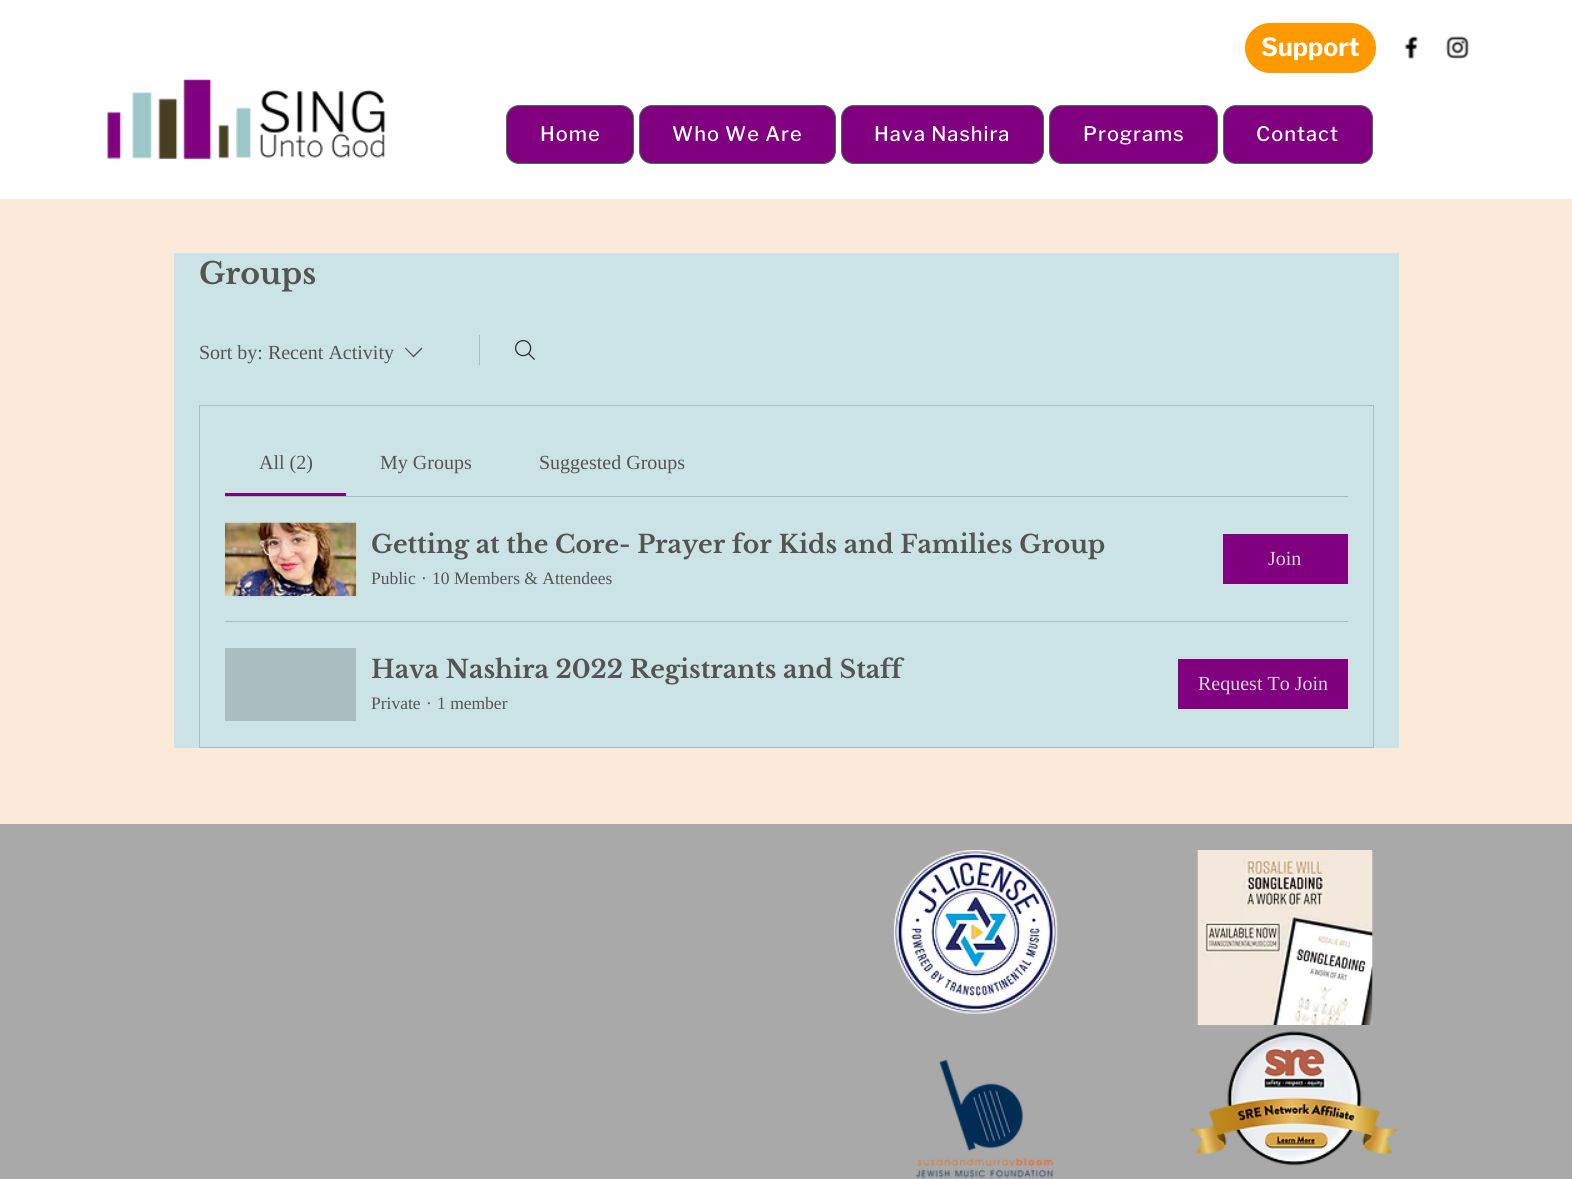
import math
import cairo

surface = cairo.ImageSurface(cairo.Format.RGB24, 1572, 1179)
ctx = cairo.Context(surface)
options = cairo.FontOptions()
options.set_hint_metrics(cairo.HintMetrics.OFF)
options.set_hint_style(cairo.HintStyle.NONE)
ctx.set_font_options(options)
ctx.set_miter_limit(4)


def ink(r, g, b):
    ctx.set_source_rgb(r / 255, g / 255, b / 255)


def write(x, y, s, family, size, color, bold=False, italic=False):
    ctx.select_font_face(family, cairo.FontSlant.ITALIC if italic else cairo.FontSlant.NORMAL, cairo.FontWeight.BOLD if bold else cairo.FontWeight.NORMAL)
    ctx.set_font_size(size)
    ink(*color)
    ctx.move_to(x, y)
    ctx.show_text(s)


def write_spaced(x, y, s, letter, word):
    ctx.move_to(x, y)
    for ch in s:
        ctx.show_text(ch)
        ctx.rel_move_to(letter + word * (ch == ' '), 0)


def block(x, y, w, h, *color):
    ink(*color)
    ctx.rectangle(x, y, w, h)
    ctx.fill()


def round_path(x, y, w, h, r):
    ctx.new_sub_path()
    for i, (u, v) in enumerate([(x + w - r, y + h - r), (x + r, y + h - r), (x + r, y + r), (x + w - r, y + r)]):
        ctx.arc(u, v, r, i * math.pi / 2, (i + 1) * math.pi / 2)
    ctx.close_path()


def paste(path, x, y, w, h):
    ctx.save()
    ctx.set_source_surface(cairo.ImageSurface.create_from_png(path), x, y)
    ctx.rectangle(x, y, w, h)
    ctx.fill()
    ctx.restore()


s1 = dict(family="Libre Franklin", size=25, color=(255, 255, 255), bold=True)
s2 = dict(family="Libre Baskerville", size=30, color=(84, 84, 84), bold=True)
s3 = dict(family="Liberation Serif", size=20, color=(84, 84, 84))
s4 = dict(family="Libre Baskerville", size=25, color=(84, 84, 84), bold=True)
s5 = dict(family="Liberation Serif", size=17.5, color=(84, 84, 84))
s6 = dict(family="Liberation Serif", size=20, color=(212, 212, 212))

ink(251, 234, 217)
ctx.paint()
block(0, 0, 1572, 199, 255, 255, 255)
ink(255, 153, 0)
round_path(1245, 23, 131, 50, 25)
ctx.fill()
write(1261, 56, "Support", **s1)
paste("pic1.png", 107, 78, 279, 82)
ink(128, 0, 128)
round_path(506.5, 105.5, 127, 58, 12.5)
ctx.fill_preserve()
ink(63, 118, 82)
ctx.set_line_width(1)
ctx.stroke()
ctx.select_font_face("Libre Franklin Medium")
ctx.set_font_size(20)
ink(255, 255, 255)
write_spaced(540, 141, "Home", 1, 0)
ink(128, 0, 128)
round_path(639.5, 105.5, 196, 58, 12.5)
ctx.fill_preserve()
ink(63, 118, 82)
ctx.stroke()
ink(255, 255, 255)
write_spaced(672, 141, "Who We Are", 1, 0)
ink(128, 0, 128)
round_path(841.5, 105.5, 202, 58, 12.5)
ctx.fill_preserve()
ink(63, 118, 82)
ctx.stroke()
ink(255, 255, 255)
write_spaced(874, 141, "Hava Nashira", 1, 0)
ink(128, 0, 128)
round_path(1049.5, 105.5, 168, 58, 12.5)
ctx.fill_preserve()
ink(63, 118, 82)
ctx.stroke()
ink(255, 255, 255)
write_spaced(1083, 141, "Programs", 1, 0)
ink(128, 0, 128)
round_path(1223.5, 105.5, 149, 58, 12.5)
ctx.fill_preserve()
ink(63, 118, 82)
ctx.stroke()
ink(255, 255, 255)
write_spaced(1256, 141, "Contact", 1, 0)
paste("pic2.png", 1404, 36, 15, 24)
paste("pic3.png", 1445, 36, 25, 23)
block(174, 253, 1225, 495, 203, 227, 228)
write(199, 284, "Groups", **s2)
write(199, 359, "Sort by: Recent Activity", **s3)
ctx.set_fill_rule(cairo.FillRule.EVEN_ODD)
ctx.new_path()
ctx.move_to(421.5, 347.5)
ctx.line_to(422.5, 348.5)
ctx.line_to(413.5, 357.5)
ctx.line_to(405, 348.5)
ctx.line_to(405.5, 347.5)
ctx.line_to(413.5, 355.5)
ctx.close_path()
ctx.fill()
block(479, 335, 1, 30, 171, 190, 191)
paste("pic4.png", 515, 340, 20, 20)
ctx.rectangle(199.5, 405.5, 1174, 342)
ctx.stroke()
block(225, 496, 1123, 1, 171, 190, 191)
block(225, 493, 121, 3, 128, 0, 128)
write(259, 469, "All (2)", **s3)
write(380, 469, "My Groups", **s3)
write(539, 469, "Suggested Groups", **s3)
paste("pic5.png", 225, 522, 132, 75)
write(371, 553, "Getting at the Core- Prayer for Kids and Families Group", **s4)
write(371, 584, "Public", **s5)
write(421, 584, "·", **s5)
write(432, 584, "10 Members & Attendees", **s5)
block(1223, 534, 125, 50, 128, 0, 128)
write(1268, 565, "Join", **s6)
block(225, 621, 1123, 1, 171, 190, 191)
block(225, 648, 131, 73, 171, 190, 191)
write(371, 678, "Hava Nashira 2022 Registrants and Staff", **s4)
write(371, 709, "Private", **s5)
write(426, 709, "·", **s5)
write(437, 709, "1 member", **s5)
block(1178, 659, 170, 50, 128, 0, 128)
write(1198, 690, "Request To Join", **s6)
block(0, 824, 1572, 355, 169, 169, 169)
paste("pic6.png", 893, 850, 165, 164)
paste("pic7.png", 1197, 850, 176, 175)
paste("pic8.png", 916, 1059, 138, 119)
paste("pic9.png", 1190, 1031, 209, 135)
surface.write_to_png("screenshot.png")
